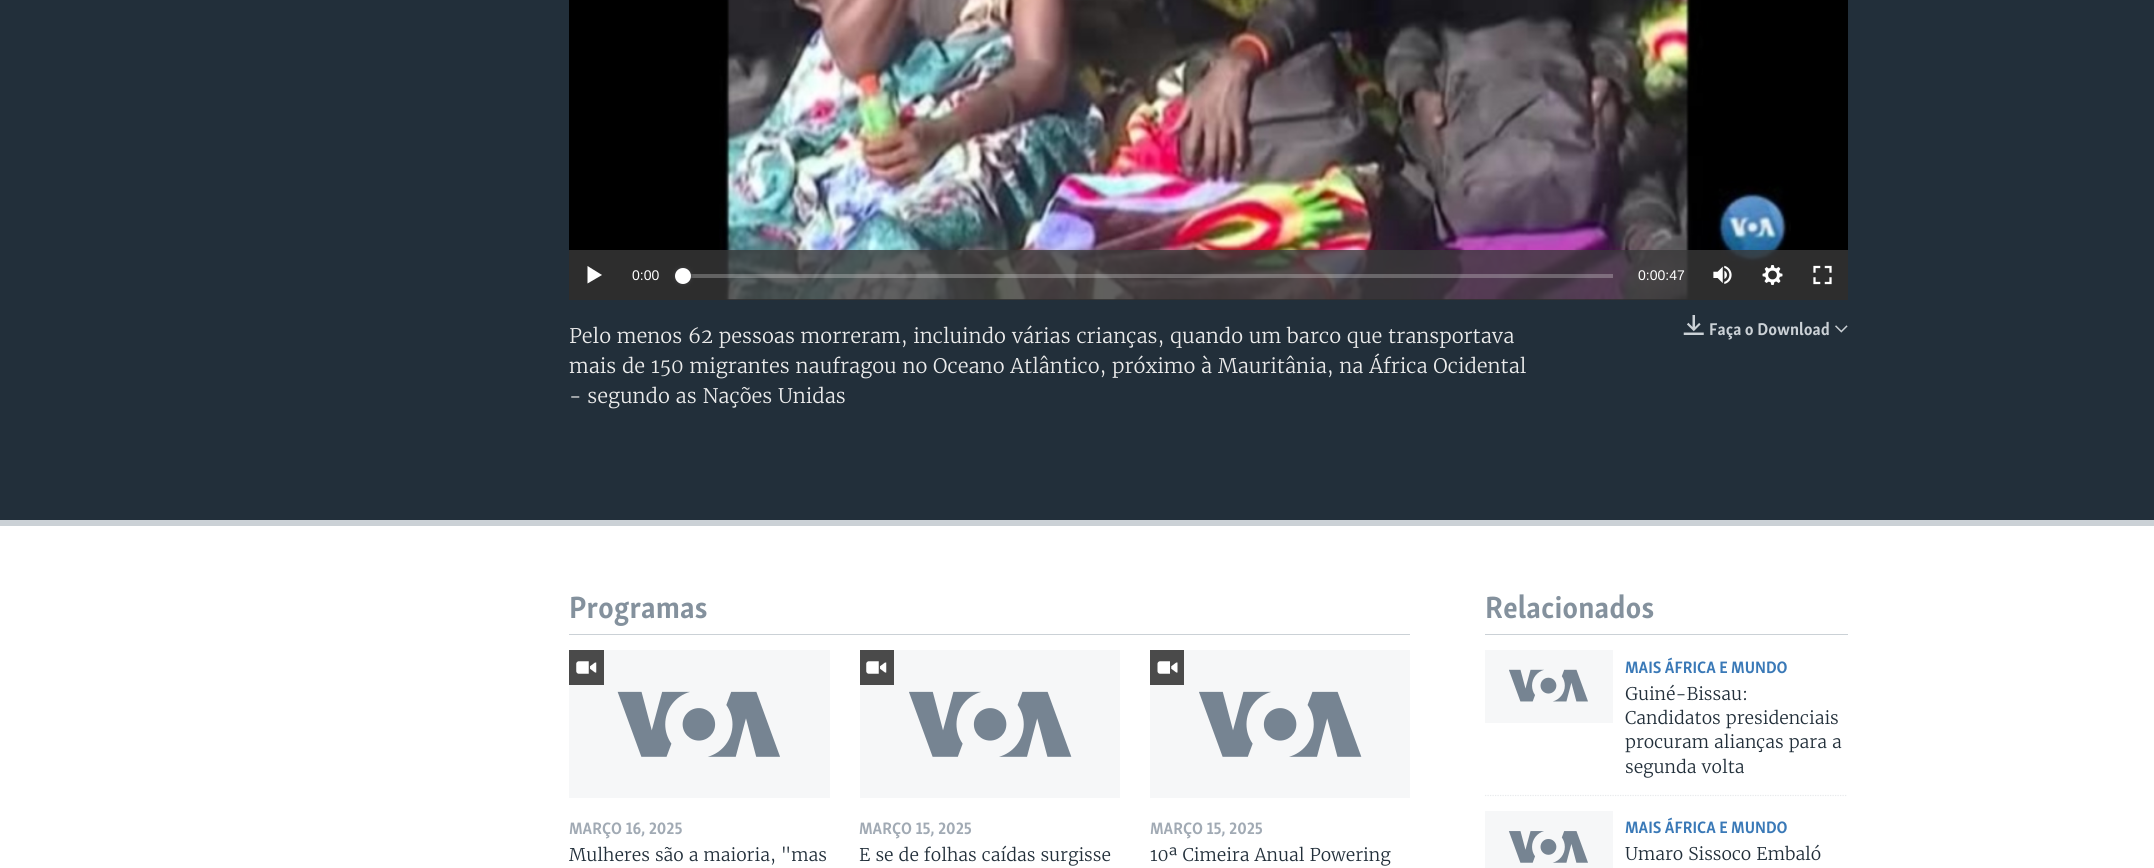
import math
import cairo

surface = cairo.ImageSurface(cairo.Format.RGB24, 2154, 868)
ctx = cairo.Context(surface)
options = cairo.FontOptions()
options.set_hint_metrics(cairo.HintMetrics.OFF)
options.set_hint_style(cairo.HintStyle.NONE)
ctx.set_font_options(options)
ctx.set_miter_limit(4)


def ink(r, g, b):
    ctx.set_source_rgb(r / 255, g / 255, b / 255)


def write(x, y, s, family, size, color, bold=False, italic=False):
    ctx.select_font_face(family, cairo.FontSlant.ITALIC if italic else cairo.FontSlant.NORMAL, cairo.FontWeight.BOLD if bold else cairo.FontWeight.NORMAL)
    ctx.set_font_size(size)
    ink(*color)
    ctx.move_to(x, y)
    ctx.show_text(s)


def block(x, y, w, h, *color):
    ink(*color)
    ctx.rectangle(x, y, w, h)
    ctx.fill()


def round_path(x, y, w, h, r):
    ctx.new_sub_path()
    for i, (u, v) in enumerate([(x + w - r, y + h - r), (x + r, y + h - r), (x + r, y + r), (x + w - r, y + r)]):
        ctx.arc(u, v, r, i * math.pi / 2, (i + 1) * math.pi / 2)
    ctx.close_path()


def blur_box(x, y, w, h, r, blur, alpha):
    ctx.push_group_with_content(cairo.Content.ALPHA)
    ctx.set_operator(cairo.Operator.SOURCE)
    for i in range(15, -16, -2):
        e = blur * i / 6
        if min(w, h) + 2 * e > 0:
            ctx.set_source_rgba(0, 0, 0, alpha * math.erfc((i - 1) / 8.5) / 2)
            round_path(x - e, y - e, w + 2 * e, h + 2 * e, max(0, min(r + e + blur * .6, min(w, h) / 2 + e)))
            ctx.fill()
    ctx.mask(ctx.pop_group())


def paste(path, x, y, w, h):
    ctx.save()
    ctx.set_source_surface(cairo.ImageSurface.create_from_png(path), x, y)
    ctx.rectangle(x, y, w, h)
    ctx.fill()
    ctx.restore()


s1 = dict(family="Liberation Sans", size=14, color=(255, 255, 255))
s2 = dict(family="Merriweather Light", size=20, color=(235, 235, 235))
s3 = dict(family="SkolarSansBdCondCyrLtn", size=17.5, color=(203, 209, 214), bold=True)
s4 = dict(family="SkolarSansBdCondCyrLtn", size=31.5, color=(132, 145, 157), bold=True)
s5 = dict(family="SkolarSansBdCondCyrLtn", size=17, color=(161, 170, 180), bold=True)
s6 = dict(family="Merriweather Light", size=17.5, color=(34, 47, 58))
s7 = dict(family="SkolarSansBdCondCyrLtn", size=17, color=(58, 121, 183), bold=True)

ink(255, 255, 255)
ctx.paint()
block(0, 0, 2154, 520, 34, 47, 58)
block(0, 520, 2154, 6, 203, 209, 214)
block(569, 0, 1279, 300, 0, 0, 0)
paste("pic1.png", 719, 0, 1072, 300)
ctx.set_source_rgba(0.22, 0.22, 0.22, 0.8)
ctx.rectangle(569, 250, 1279, 50)
ctx.fill()
ink(255, 255, 255)
ctx.new_path()
ctx.move_to(587.5, 283.5)
ctx.line_to(602, 275)
ctx.line_to(587.5, 266)
ctx.close_path()
ctx.fill()
write(632, 280, "0:00", **s1)
ctx.set_source_rgba(1, 1, 1, 0.25)
ctx.rectangle(683, 274, 930, 4)
ctx.fill()
ink(65, 65, 68)
blur_box(675, 268, 16, 16, 8, 2, 1)
ink(255, 255, 255)
ctx.arc(683, 276, 8, 0, 2 * math.pi)
ctx.fill()
write(1638, 280, "0:00:47", **s1)
paste("pic2.png", 1713, 265, 19, 19)
paste("pic3.png", 1762, 265, 21, 20)
paste("pic4.png", 1813, 265, 19, 20)
write(569, 343, "Pelo menos 62 pessoas morreram, incluindo várias crianças, quando um barco que transportava", **s2)
write(569, 373, "mais de 150 migrantes naufragou no Oceano Atlântico, próximo à Mauritânia, na África Ocidental", **s2)
write(569, 403, "- segundo as Nações Unidas", **s2)
paste("pic5.png", 1683, 315, 21, 20)
write(1709, 335, "Faça o Download", **s3)
paste("pic6.png", 1835, 325, 13, 8)
block(569, 634, 841, 1, 203, 209, 214)
write(569, 618, "Programas", **s4)
block(569, 650, 261, 148, 246, 247, 248)
paste("pic7.png", 617, 691, 163, 66)
block(569, 650, 35, 35, 74, 74, 74)
paste("pic8.png", 576, 661, 21, 13)
write(569, 834, "MARÇO 16, 2025", **s5)
write(569, 861, "Mulheres são a maioria, \"mas", **s6)
block(860, 650, 260, 148, 246, 247, 248)
paste("pic9.png", 909, 691, 163, 66)
block(860, 650, 34, 35, 74, 74, 74)
paste("pic8.png", 866, 661, 21, 13)
write(859, 834, "MARÇO 15, 2025", **s5)
write(859, 861, "E se de folhas caídas surgisse", **s6)
block(1150, 650, 260, 148, 246, 247, 248)
paste("pic9.png", 1199, 691, 163, 66)
block(1150, 650, 34, 35, 74, 74, 74)
paste("pic10.png", 1157, 661, 21, 13)
write(1150, 834, "MARÇO 15, 2025", **s5)
write(1150, 861, "10ª Cimeira Anual Powering", **s6)
block(1485, 634, 363, 1, 203, 209, 214)
write(1485, 618, "Relacionados", **s4)
block(1485, 650, 128, 73, 246, 247, 248)
paste("pic11.png", 1509, 669, 79, 33)
write(1625, 673, "MAIS ÁFRICA E MUNDO", **s7)
write(1625, 700, "Guiné-Bissau:", **s6)
write(1625, 724, "Candidatos presidenciais", **s6)
write(1625, 748, "procuram alianças para a", **s6)
write(1625, 773, "segunda volta", **s6)
ctx.new_path()
ctx.move_to(1485, 795.5)
ctx.line_to(1847.5, 795.5)
ink(232, 234, 236)
ctx.set_line_width(1.2)
ctx.set_dash([1.25, 1.25])
ctx.stroke()
block(1485, 811, 128, 57, 246, 247, 248)
paste("pic12.png", 1508, 831, 80, 32)
write(1625, 833, "MAIS ÁFRICA E MUNDO", **s7)
write(1625, 860, "Umaro Sissoco Embaló", **s6)
surface.write_to_png("screenshot.png")
